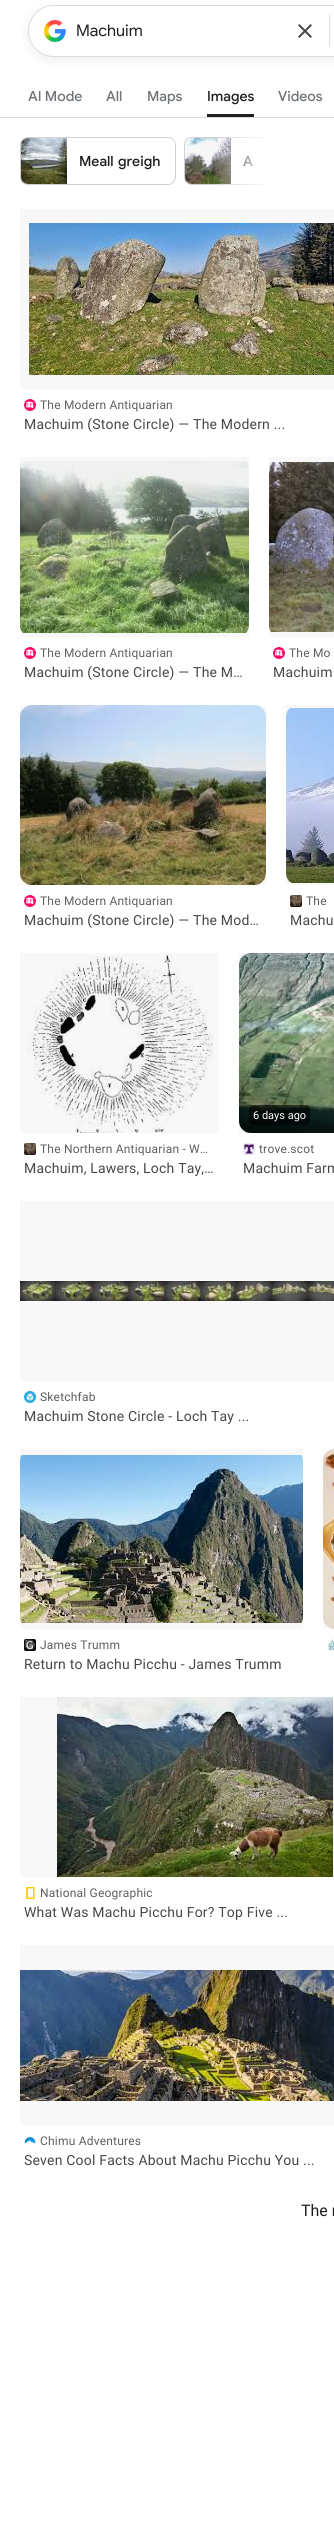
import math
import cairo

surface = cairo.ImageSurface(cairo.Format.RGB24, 334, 2534)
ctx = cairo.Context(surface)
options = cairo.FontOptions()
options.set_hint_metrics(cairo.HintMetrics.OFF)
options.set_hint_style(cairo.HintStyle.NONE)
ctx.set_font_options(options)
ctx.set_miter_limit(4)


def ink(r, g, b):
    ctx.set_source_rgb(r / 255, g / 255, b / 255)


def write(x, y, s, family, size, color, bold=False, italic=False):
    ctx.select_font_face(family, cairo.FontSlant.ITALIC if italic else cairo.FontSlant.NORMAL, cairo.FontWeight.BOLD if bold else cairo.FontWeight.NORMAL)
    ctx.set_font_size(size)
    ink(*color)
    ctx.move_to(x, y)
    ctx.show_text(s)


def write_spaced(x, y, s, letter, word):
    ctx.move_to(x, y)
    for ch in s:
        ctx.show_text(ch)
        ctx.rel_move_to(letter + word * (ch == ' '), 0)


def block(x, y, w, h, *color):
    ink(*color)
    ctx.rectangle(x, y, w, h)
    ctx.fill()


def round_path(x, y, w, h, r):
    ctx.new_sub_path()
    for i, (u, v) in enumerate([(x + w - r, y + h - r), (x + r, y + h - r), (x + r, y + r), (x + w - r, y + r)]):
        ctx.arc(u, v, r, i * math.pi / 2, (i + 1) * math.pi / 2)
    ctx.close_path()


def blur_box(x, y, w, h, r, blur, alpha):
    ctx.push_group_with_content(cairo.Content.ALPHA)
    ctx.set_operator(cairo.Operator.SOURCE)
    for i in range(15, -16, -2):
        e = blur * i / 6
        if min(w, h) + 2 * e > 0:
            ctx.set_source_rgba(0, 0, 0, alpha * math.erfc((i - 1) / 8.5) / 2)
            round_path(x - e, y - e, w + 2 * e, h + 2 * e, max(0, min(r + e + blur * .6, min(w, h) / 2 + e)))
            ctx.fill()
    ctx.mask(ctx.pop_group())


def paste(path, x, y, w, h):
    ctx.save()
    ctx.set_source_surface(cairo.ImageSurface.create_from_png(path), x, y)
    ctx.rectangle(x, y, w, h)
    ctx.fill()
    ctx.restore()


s1 = dict(family="Google Sans", size=16, color=(31, 31, 31))
s2 = dict(family="Google Sans Medium", size=14, color=(112, 117, 122))
s3 = dict(family="Google Sans Medium", size=14, color=(31, 31, 31))
s4 = dict(family="Roboto", size=11, color=(255, 255, 255))
s5 = dict(family="Roboto", size=16, color=(31, 31, 31))

ink(255, 255, 255)
ctx.paint()
ink(31, 31, 31)
blur_box(28, 8, 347, 52, 26, 5, 0.08)
ink(255, 255, 255)
round_path(28.5, 5.5, 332, 51, 25.5)
ctx.fill_preserve()
ink(218, 220, 224)
ctx.set_line_width(1)
ctx.stroke()
paste("pic1.png", 44, 20, 22, 22)
write(76, 36, "Machuim", **s1)
paste("pic2.png", 298, 24, 14, 14)
block(329, 15, 1, 32, 218, 220, 224)
write(28, 101, "AI Mode", **s2)
write(106, 101, "All", **s2)
write(147, 101, "Maps", **s2)
block(207, 114, 47, 3, 31, 31, 31)
write(207, 101, "Images", **s3)
write(278, 101, "Videos", **s2)
block(0, 117, 334, 1, 218, 220, 224)
round_path(20.5, 137.5, 155, 47, 7.5)
ink(210, 210, 210)
ctx.stroke()
paste("pic3.png", 21, 138, 46, 46)
ctx.set_source_rgba(0, 0, 0, 0.03)
ctx.rectangle(21, 138, 46, 46)
ctx.fill()
ink(31, 31, 31)
write_spaced(79, 166, "Meall greigh", 0, 1)
round_path(184.5, 137.5, 124, 47, 7.5)
ink(210, 210, 210)
ctx.stroke()
paste("pic4.png", 185, 138, 46, 46)
ctx.set_source_rgba(0, 0, 0, 0.03)
ctx.rectangle(185, 138, 46, 46)
ctx.fill()
ink(31, 31, 31)
write_spaced(243, 166, "A", 0, 1)
gradient = cairo.LinearGradient(212, 162, 312, 162)
gradient.add_color_stop_rgba(0, 1, 1, 1, 0)
gradient.add_color_stop_rgba(0.6, 1, 1, 1, 1)
gradient.add_color_stop_rgba(1, 1, 1, 1, 1)
ctx.set_source(gradient)
ctx.rectangle(213, 137, 96, 48)
ctx.fill()
paste("pic5.png", 29, 223, 305, 152)
ctx.set_source_rgba(0, 0, 0, 0.03)
ctx.rectangle(20, 209, 314, 180)
ctx.fill()
paste("pic6.png", 24, 399, 12, 12)
ctx.select_font_face("Roboto")
ctx.set_font_size(12)
ink(94, 94, 94)
write_spaced(40, 409, "The Modern Antiquarian", 0.2, 0)
ctx.set_font_size(14)
ink(71, 71, 71)
write_spaced(24, 429, "Machuim (Stone Circle) — The Modern ...", 0.2, 0)
paste("pic7.png", 20, 461, 229, 172)
ctx.set_source_rgba(0, 0, 0, 0.03)
ctx.rectangle(20, 457, 229, 180)
ctx.fill()
paste("pic6.png", 24, 647, 12, 12)
ctx.set_font_size(12)
ink(94, 94, 94)
write_spaced(40, 657, "The Modern Antiquarian", 0.2, 0)
ctx.set_font_size(14)
ink(71, 71, 71)
write_spaced(24, 677, "Machuim (Stone Circle) — The M…", 0.2, 0)
paste("pic8.png", 269, 462, 65, 170)
ctx.set_source_rgba(0, 0, 0, 0.03)
ctx.rectangle(269, 457, 65, 180)
ctx.fill()
paste("pic9.png", 273, 647, 12, 12)
ctx.set_font_size(12)
ink(94, 94, 94)
write_spaced(289, 657, "The Mo", 0.2, 0)
ctx.set_font_size(14)
ink(71, 71, 71)
write_spaced(273, 677, "Machuim", 0.2, 0)
paste("pic10.png", 20, 705, 246, 180)
ctx.set_source_rgba(0, 0, 0, 0.03)
ctx.rectangle(20, 705, 246, 180)
ctx.fill()
paste("pic6.png", 24, 895, 12, 12)
ctx.set_font_size(12)
ink(94, 94, 94)
write_spaced(40, 905, "The Modern Antiquarian", 0.2, 0)
ctx.set_font_size(14)
ink(71, 71, 71)
write_spaced(24, 925, "Machuim (Stone Circle) — The Mod…", 0.2, 0)
paste("pic11.png", 286, 708, 48, 175)
ctx.set_source_rgba(0, 0, 0, 0.03)
ctx.rectangle(286, 705, 48, 180)
ctx.fill()
paste("pic12.png", 290, 895, 12, 12)
ctx.set_font_size(12)
ink(94, 94, 94)
write_spaced(306, 905, "The", 0.2, 0)
ctx.set_font_size(14)
ink(71, 71, 71)
write_spaced(290, 925, "Machu", 0.2, 0)
paste("pic13.png", 27, 953, 187, 180)
ctx.set_source_rgba(0, 0, 0, 0.03)
ctx.rectangle(20, 953, 199, 180)
ctx.fill()
paste("pic12.png", 24, 1143, 12, 12)
ctx.set_font_size(12)
ink(94, 94, 94)
write_spaced(40, 1153, "The Northern Antiquarian - W…", 0.2, 0)
ctx.set_font_size(14)
ink(71, 71, 71)
write_spaced(24, 1173, "Machuim, Lawers, Loch Tay,…", 0.2, 0)
paste("pic14.png", 239, 953, 95, 180)
ctx.set_source_rgba(0, 0, 0, 0.03)
ctx.rectangle(239, 953, 95, 180)
ctx.fill()
ctx.set_source_rgba(0, 0, 0, 0.6)
round_path(249, 1105, 61, 20, 4)
ctx.fill()
write(253, 1119, "6 days ago", **s4)
paste("pic15.png", 243, 1143, 12, 12)
ctx.set_font_size(12)
ink(94, 94, 94)
write_spaced(259, 1153, "trove.scot", 0.2, 0)
ctx.set_font_size(14)
ink(71, 71, 71)
write_spaced(243, 1173, "Machuim Farm", 0.2, 0)
paste("pic16.png", 20, 1281, 314, 20)
ctx.set_source_rgba(0, 0, 0, 0.03)
ctx.rectangle(20, 1201, 314, 180)
ctx.fill()
paste("pic17.png", 24, 1391, 12, 12)
ctx.set_font_size(12)
ink(94, 94, 94)
write_spaced(40, 1401, "Sketchfab", 0.2, 0)
ctx.set_font_size(14)
ink(71, 71, 71)
write_spaced(24, 1421, "Machuim Stone Circle - Loch Tay ...", 0.2, 0)
paste("pic18.png", 323, 1449, 11, 180)
ctx.set_source_rgba(0, 0, 0, 0.03)
ctx.rectangle(323, 1449, 11, 180)
ctx.fill()
paste("pic19.png", 327, 1639, 7, 12)
paste("pic20.png", 20, 1455, 283, 168)
ctx.rectangle(20, 1449, 283, 180)
ctx.fill()
paste("pic21.png", 24, 1639, 12, 12)
ctx.set_font_size(12)
ink(94, 94, 94)
write_spaced(40, 1649, "James Trumm", 0.2, 0)
ctx.set_font_size(14)
ink(71, 71, 71)
write_spaced(24, 1669, "Return to Machu Picchu - James Trumm", 0.2, 0)
paste("pic22.png", 57, 1697, 276, 180)
ctx.set_source_rgba(0, 0, 0, 0.03)
ctx.rectangle(20, 1697, 314, 180)
ctx.fill()
paste("pic23.png", 26, 1887, 9, 12)
ctx.set_font_size(12)
ink(94, 94, 94)
write_spaced(40, 1897, "National Geographic", 0.2, 0)
ctx.set_font_size(14)
ink(71, 71, 71)
write_spaced(24, 1917, "What Was Machu Picchu For? Top Five ...", 0.2, 0)
paste("pic24.png", 20, 1970, 314, 131)
ctx.set_source_rgba(0, 0, 0, 0.03)
ctx.rectangle(20, 1945, 314, 180)
ctx.fill()
paste("pic25.png", 24, 2137, 12, 7)
ctx.set_font_size(12)
ink(94, 94, 94)
write_spaced(40, 2145, "Chimu Adventures", 0.2, 0)
ctx.set_font_size(14)
ink(71, 71, 71)
write_spaced(24, 2165, "Seven Cool Facts About Machu Picchu You ...", 0.2, 0)
write(301, 2216, "The r", **s5)
surface.write_to_png("screenshot.png")
